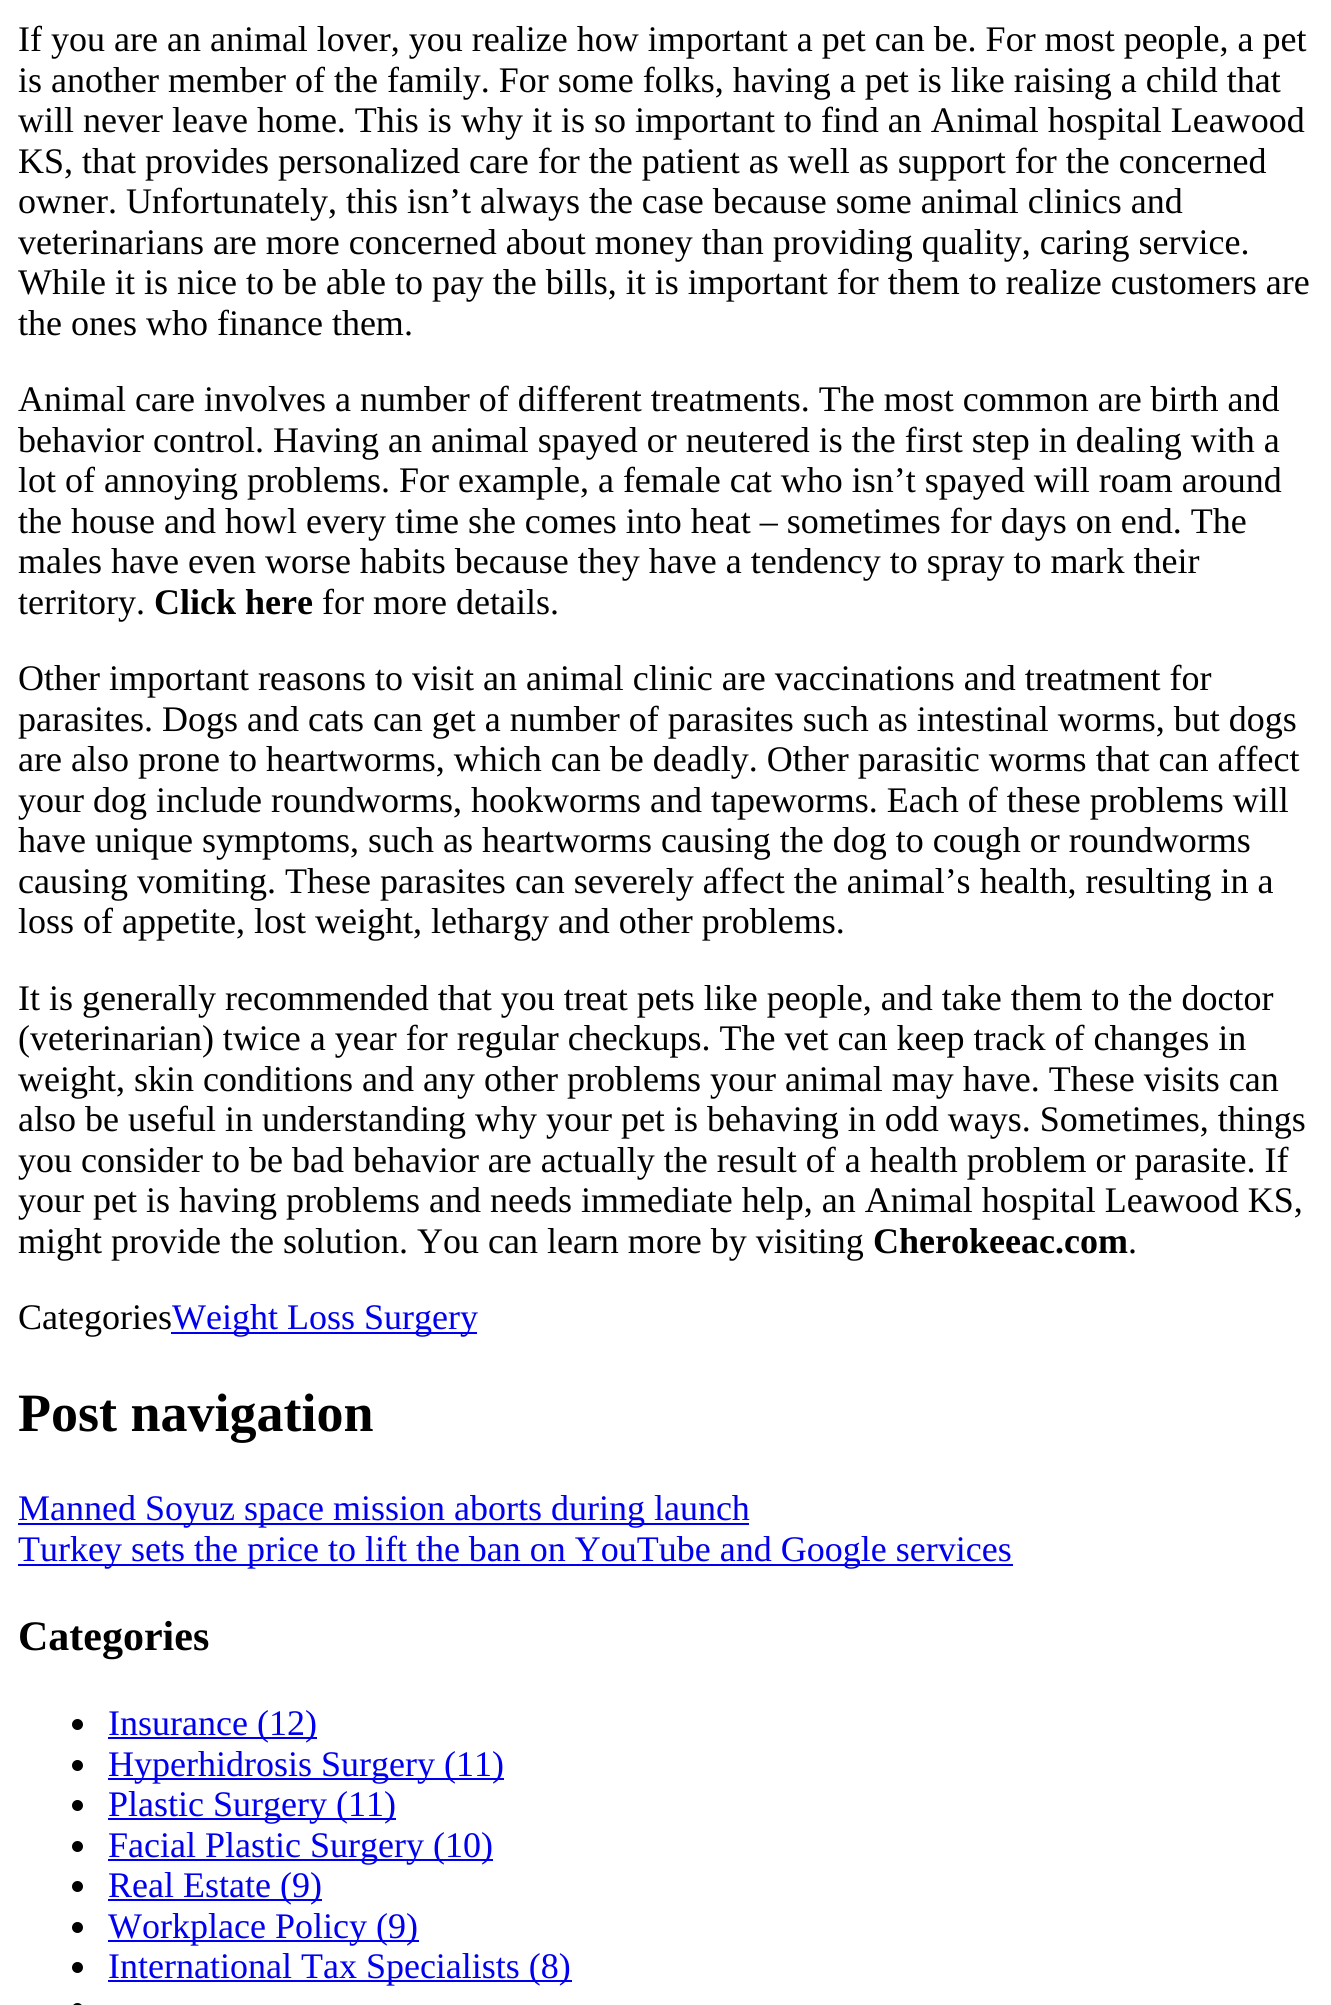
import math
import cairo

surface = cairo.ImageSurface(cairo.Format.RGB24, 1331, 2005)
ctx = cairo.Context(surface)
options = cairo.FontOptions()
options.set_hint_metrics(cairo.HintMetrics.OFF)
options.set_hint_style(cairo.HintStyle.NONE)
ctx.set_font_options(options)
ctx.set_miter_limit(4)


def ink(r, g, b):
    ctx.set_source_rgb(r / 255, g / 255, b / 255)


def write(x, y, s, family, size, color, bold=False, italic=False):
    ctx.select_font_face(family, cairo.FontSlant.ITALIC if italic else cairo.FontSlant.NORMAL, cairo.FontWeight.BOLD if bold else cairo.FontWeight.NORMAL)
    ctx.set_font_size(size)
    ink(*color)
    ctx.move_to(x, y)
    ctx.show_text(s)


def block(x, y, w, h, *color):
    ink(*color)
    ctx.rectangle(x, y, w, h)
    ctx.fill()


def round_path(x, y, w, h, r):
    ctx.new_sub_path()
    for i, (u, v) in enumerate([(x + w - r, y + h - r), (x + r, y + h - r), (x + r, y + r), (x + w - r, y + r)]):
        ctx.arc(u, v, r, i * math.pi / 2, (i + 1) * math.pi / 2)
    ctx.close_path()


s1 = dict(family="Liberation Serif", size=36, color=(0, 0, 0))
s2 = dict(family="Liberation Serif", size=36, color=(0, 0, 0), bold=True)
s3 = dict(family="Liberation Serif", size=36, color=(0, 0, 238))
s4 = dict(family="Liberation Serif", size=54, color=(0, 0, 0), bold=True)
s5 = dict(family="Liberation Serif", size=42, color=(0, 0, 0), bold=True)

ink(255, 255, 255)
ctx.paint()
write(18, 51, "If you are an animal lover, you realize how important a pet can be. For most people, a pet", **s1)
write(18, 92, "is another member of the family. For some folks, having a pet is like raising a child that", **s1)
write(18, 132, "will never leave home. This is why it is so important to find an Animal hospital Leawood", **s1)
write(18, 173, "KS, that provides personalized care for the patient as well as support for the concerned", **s1)
write(18, 213, "owner. Unfortunately, this isn’t always the case because some animal clinics and", **s1)
write(18, 254, "veterinarians are more concerned about money than providing quality, caring service.", **s1)
write(18, 294, "While it is nice to be able to pay the bills, it is important for them to realize customers are", **s1)
write(18, 335, "the ones who finance them.", **s1)
write(18, 411, "Animal care involves a number of different treatments. The most common are birth and", **s1)
write(18, 452, "behavior control. Having an animal spayed or neutered is the first step in dealing with a", **s1)
write(18, 492, "lot of annoying problems. For example, a female cat who isn’t spayed will roam around", **s1)
write(18, 533, "the house and howl every time she comes into heat – sometimes for days on end. The", **s1)
write(18, 573, "males have even worse habits because they have a tendency to spray to mark their", **s1)
write(18, 614, "territory.", **s1)
write(154, 614, "Click here", **s2)
write(322, 614, "for more details.", **s1)
write(18, 690, "Other important reasons to visit an animal clinic are vaccinations and treatment for", **s1)
write(18, 731, "parasites. Dogs and cats can get a number of parasites such as intestinal worms, but dogs", **s1)
write(18, 771, "are also prone to heartworms, which can be deadly. Other parasitic worms that can affect", **s1)
write(18, 812, "your dog include roundworms, hookworms and tapeworms. Each of these problems will", **s1)
write(18, 852, "have unique symptoms, such as heartworms causing the dog to cough or roundworms", **s1)
write(18, 893, "causing vomiting. These parasites can severely affect the animal’s health, resulting in a", **s1)
write(18, 933, "loss of appetite, lost weight, lethargy and other problems.", **s1)
write(18, 1010, "It is generally recommended that you treat pets like people, and take them to the doctor", **s1)
write(18, 1050, "(veterinarian) twice a year for regular checkups. The vet can keep track of changes in", **s1)
write(18, 1091, "weight, skin conditions and any other problems your animal may have. These visits can", **s1)
write(18, 1131, "also be useful in understanding why your pet is behaving in odd ways. Sometimes, things", **s1)
write(18, 1172, "you consider to be bad behavior are actually the result of a health problem or parasite. If", **s1)
write(18, 1212, "your pet is having problems and needs immediate help, an Animal hospital Leawood KS,", **s1)
write(18, 1253, "might provide the solution. You can learn more by visiting", **s1)
write(873, 1253, "Cherokeeac.com", **s2)
write(1128, 1253, ".", **s1)
write(18, 1329, "Categories", **s1)
block(171, 1332, 306, 2, 0, 0, 238)
write(172, 1329, "Weight Loss Surgery", **s3)
write(18, 1431, "Post navigation", **s4)
block(18, 1523, 731, 2, 0, 0, 238)
write(18, 1520, "Manned Soyuz space mission aborts during launch", **s3)
block(18, 1564, 995, 2, 0, 0, 238)
write(18, 1561, "Turkey sets the price to lift the ban on YouTube and Google services", **s3)
write(18, 1650, "Categories", **s5)
ctx.new_path()
ctx.arc(77.5, 1724.5, 5.5, 0, 2 * math.pi)
ctx.fill()
block(108, 1737, 209, 2, 0, 0, 238)
write(108, 1735, "Insurance (12)", **s3)
ink(0, 0, 0)
ctx.new_path()
ctx.arc(77.5, 1765.5, 5.5, 0, 2 * math.pi)
ctx.fill()
block(108, 1778, 396, 2, 0, 0, 238)
write(108, 1776, "Hyperhidrosis Surgery (11)", **s3)
ink(0, 0, 0)
ctx.new_path()
ctx.arc(77.5, 1805.5, 5.5, 0, 2 * math.pi)
ctx.fill()
block(108, 1818, 288, 2, 0, 0, 238)
write(108, 1816, "Plastic Surgery (11)", **s3)
ink(0, 0, 0)
ctx.new_path()
ctx.arc(77.5, 1846.5, 5.5, 0, 2 * math.pi)
ctx.fill()
block(108, 1859, 385, 2, 0, 0, 238)
write(108, 1857, "Facial Plastic Surgery (10)", **s3)
ink(0, 0, 0)
ctx.new_path()
ctx.arc(77.5, 1886.5, 5.5, 0, 2 * math.pi)
ctx.fill()
block(108, 1899, 214, 2, 0, 0, 238)
write(108, 1897, "Real Estate (9)", **s3)
ink(0, 0, 0)
ctx.new_path()
ctx.arc(77.5, 1927.5, 5.5, 0, 2 * math.pi)
ctx.fill()
block(108, 1940, 311, 2, 0, 0, 238)
write(108, 1938, "Workplace Policy (9)", **s3)
ink(0, 0, 0)
ctx.new_path()
ctx.arc(77.5, 1967.5, 5.5, 0, 2 * math.pi)
ctx.fill()
block(108, 1980, 464, 2, 0, 0, 238)
write(108, 1978, "International Tax Specialists (8)", **s3)
ink(0, 0, 0)
round_path(72, 2003, 11, 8, 5.5)
ctx.fill()
surface.write_to_png("screenshot.png")
